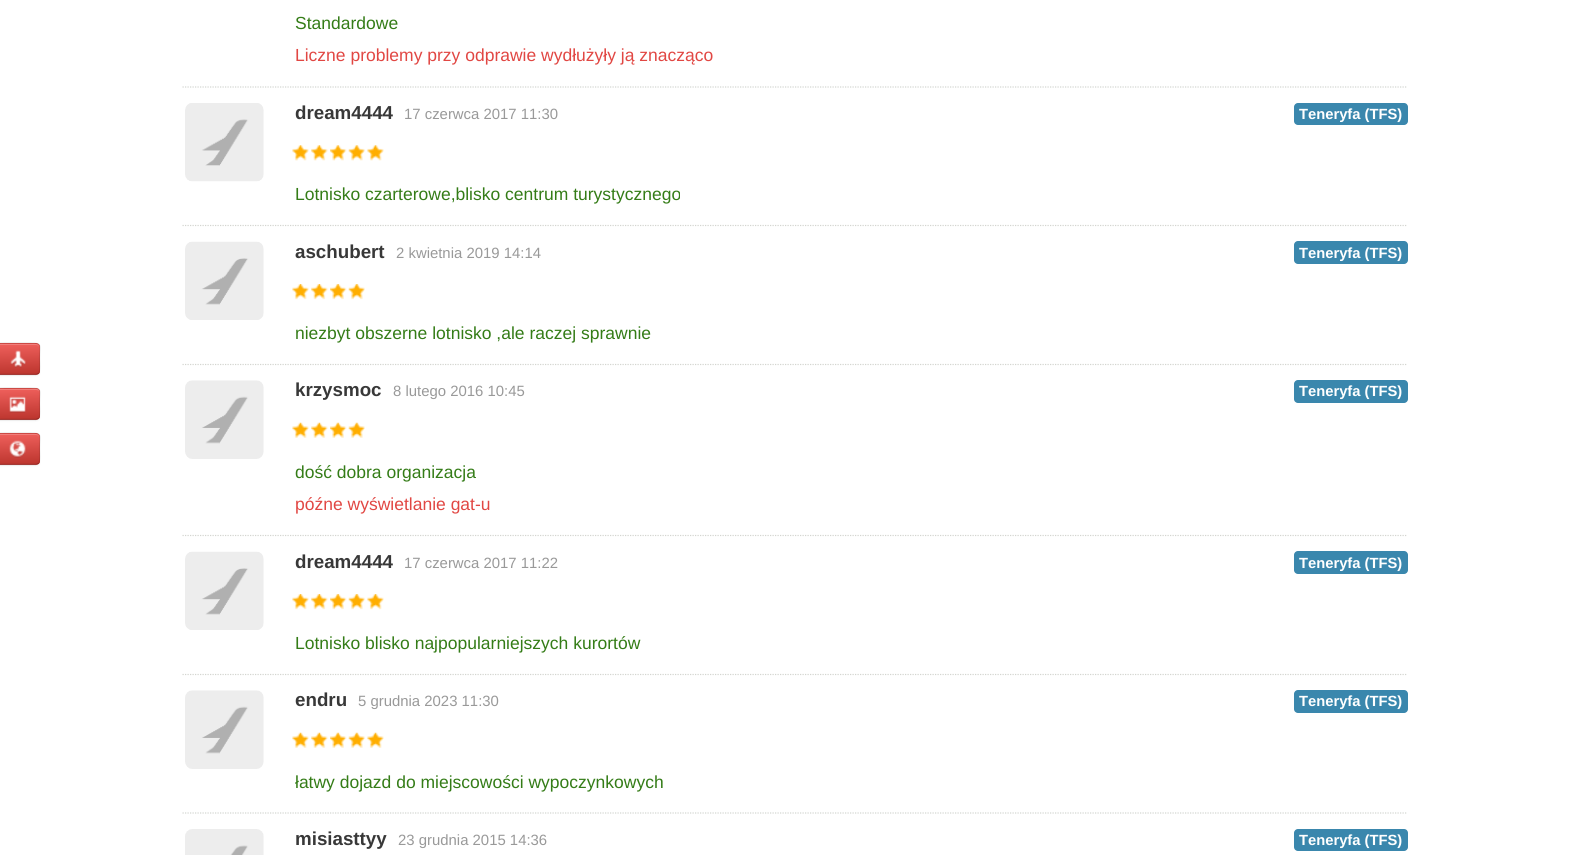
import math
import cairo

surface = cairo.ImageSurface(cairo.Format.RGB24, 1590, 855)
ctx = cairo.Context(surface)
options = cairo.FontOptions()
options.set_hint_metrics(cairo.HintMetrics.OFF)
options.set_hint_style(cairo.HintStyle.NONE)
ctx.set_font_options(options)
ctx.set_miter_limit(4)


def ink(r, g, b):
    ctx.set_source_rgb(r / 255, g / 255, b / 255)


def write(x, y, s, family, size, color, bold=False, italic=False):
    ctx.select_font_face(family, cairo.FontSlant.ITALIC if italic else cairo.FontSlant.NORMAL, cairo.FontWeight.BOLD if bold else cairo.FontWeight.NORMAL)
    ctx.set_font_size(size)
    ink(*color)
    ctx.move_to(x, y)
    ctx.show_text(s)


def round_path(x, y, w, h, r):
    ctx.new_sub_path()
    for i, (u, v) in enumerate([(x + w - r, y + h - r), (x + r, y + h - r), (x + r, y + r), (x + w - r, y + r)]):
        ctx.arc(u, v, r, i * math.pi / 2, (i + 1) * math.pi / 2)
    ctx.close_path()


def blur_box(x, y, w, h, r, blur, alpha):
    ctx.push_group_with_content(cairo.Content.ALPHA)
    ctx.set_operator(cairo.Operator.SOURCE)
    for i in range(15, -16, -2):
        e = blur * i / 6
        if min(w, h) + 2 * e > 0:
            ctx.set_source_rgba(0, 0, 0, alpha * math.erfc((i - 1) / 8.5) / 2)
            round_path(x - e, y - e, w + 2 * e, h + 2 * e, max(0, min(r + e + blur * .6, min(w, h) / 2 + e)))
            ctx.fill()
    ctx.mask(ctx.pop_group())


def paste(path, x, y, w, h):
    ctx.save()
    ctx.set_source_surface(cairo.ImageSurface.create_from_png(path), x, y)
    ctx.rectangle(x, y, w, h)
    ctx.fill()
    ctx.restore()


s1 = dict(family="Liberation Sans", size=17.5, color=(52, 124, 23))
s2 = dict(family="Liberation Sans", size=17.5, color=(225, 71, 67))
s3 = dict(family="Liberation Sans", size=18.75, color=(56, 56, 56), bold=True)
s4 = dict(family="Liberation Sans", size=14.9, color=(153, 153, 153))
s5 = dict(family="Liberation Sans", size=14.75, color=(255, 255, 255), bold=True)

ink(255, 255, 255)
ctx.paint()
ink(0, 0, 0)
blur_box(-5, 344, 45, 32, 4, 1, 0.05)
ink(218, 79, 73)
round_path(-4, 343, 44, 32, 4)
ctx.fill()
ctx.save()
round_path(-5, 343, 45, 32, 4)
ctx.clip()
gradient = cairo.LinearGradient(17, 344, 18, 374)
gradient.add_color_stop_rgba(0, 0.933, 0.373, 0.357, 1)
gradient.add_color_stop_rgba(1, 0.741, 0.212, 0.184, 1)
ctx.set_source(gradient)
ctx.rectangle(0, 344, 40, 30)
ctx.fill()
ctx.restore()
ink(241, 126, 123)
ctx.new_path()
ctx.move_to(-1, 345)
ctx.line_to(36, 345)
ctx.curve_to(38, 345, 39, 346, 39, 348)
ctx.curve_to(39, 343, 35, 344, 30, 344)
ctx.line_to(5, 344)
ctx.curve_to(0, 344, -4, 343, -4, 348)
ctx.curve_to(-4, 346, -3, 345, -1, 345)
ctx.close_path()
ctx.fill()
ctx.new_path()
ctx.move_to(38.5, 373.5)
ctx.line_to(36, 374.5)
ctx.line_to(-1, 374.5)
ctx.line_to(-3.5, 373.5)
ctx.set_source_rgba(0, 0, 0, 0.25)
ctx.set_line_width(1.2)
ctx.stroke()
ctx.new_path()
ctx.move_to(-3.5, 373.5)
ctx.curve_to(-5.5, 371.5, -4.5, 361.5, -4.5, 359)
ctx.curve_to(-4.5, 344.5, -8, 343, 5, 343)
ctx.line_to(30, 343)
ctx.curve_to(43, 343, 39.5, 344.5, 39.5, 359)
ctx.curve_to(39.5, 361.5, 40.5, 371.5, 38.5, 373.5)
ctx.set_source_rgba(0, 0, 0, 0.1)
ctx.stroke()
paste("pic1.png", 10, 350, 16, 18)
ink(0, 0, 0)
blur_box(-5, 389, 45, 32, 4, 1, 0.05)
ink(218, 79, 73)
round_path(-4, 388, 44, 32, 4)
ctx.fill()
ctx.save()
round_path(-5, 388, 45, 32, 4)
ctx.clip()
gradient = cairo.LinearGradient(17, 389, 18, 419)
gradient.add_color_stop_rgba(0, 0.933, 0.373, 0.357, 1)
gradient.add_color_stop_rgba(1, 0.741, 0.212, 0.184, 1)
ctx.set_source(gradient)
ctx.rectangle(0, 389, 40, 30)
ctx.fill()
ctx.restore()
ctx.set_source_rgba(1, 1, 1, 0.2)
ctx.new_path()
ctx.move_to(-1, 390)
ctx.line_to(36, 390)
ctx.curve_to(38, 390, 39, 391, 39, 392)
ctx.curve_to(39, 387, 33, 389, 30, 389)
ctx.line_to(5, 389)
ctx.curve_to(2, 389, -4, 387, -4, 392)
ctx.curve_to(-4, 391, -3, 390, -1, 390)
ctx.close_path()
ctx.fill()
ctx.new_path()
ctx.move_to(38.5, 418.5)
ctx.line_to(36, 419.5)
ctx.line_to(-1, 419.5)
ctx.line_to(-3.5, 418.5)
ctx.set_source_rgba(0, 0, 0, 0.25)
ctx.stroke()
ctx.new_path()
ctx.move_to(-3.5, 418.5)
ctx.curve_to(-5.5, 416.5, -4.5, 406.5, -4.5, 404)
ctx.curve_to(-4.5, 389.5, -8, 388, 5, 388)
ctx.line_to(30, 388)
ctx.curve_to(43, 388, 39.5, 389.5, 39.5, 404)
ctx.curve_to(39.5, 406.5, 40.5, 416.5, 38.5, 418.5)
ctx.set_source_rgba(0, 0, 0, 0.1)
ctx.stroke()
paste("pic2.png", 9, 396, 17, 17)
ink(0, 0, 0)
blur_box(-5, 434, 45, 32, 4, 1, 0.05)
ink(218, 79, 73)
round_path(-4, 433, 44, 32, 4)
ctx.fill()
ctx.save()
round_path(-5, 433, 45, 32, 4)
ctx.clip()
gradient = cairo.LinearGradient(17, 434, 18, 464)
gradient.add_color_stop_rgba(0, 0.933, 0.373, 0.357, 1)
gradient.add_color_stop_rgba(1, 0.741, 0.212, 0.184, 1)
ctx.set_source(gradient)
ctx.rectangle(0, 434, 40, 30)
ctx.fill()
ctx.restore()
ink(241, 126, 123)
ctx.new_path()
ctx.move_to(-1, 435)
ctx.line_to(36, 435)
ctx.curve_to(38, 435, 39, 436, 39, 438)
ctx.curve_to(39, 433, 35, 434, 30, 434)
ctx.line_to(5, 434)
ctx.curve_to(0, 434, -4, 433, -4, 438)
ctx.curve_to(-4, 436, -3, 435, -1, 435)
ctx.close_path()
ctx.fill()
ctx.new_path()
ctx.move_to(38.5, 463.5)
ctx.line_to(36, 464.5)
ctx.line_to(-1, 464.5)
ctx.line_to(-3.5, 463.5)
ctx.set_source_rgba(0, 0, 0, 0.25)
ctx.stroke()
ctx.new_path()
ctx.move_to(-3.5, 463.5)
ctx.curve_to(-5.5, 461.5, -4.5, 451.5, -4.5, 449)
ctx.curve_to(-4.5, 434.5, -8, 433, 5, 433)
ctx.line_to(30, 433)
ctx.curve_to(43, 433, 39.5, 434.5, 39.5, 449)
ctx.curve_to(39.5, 451.5, 40.5, 461.5, 38.5, 463.5)
ctx.set_source_rgba(0, 0, 0, 0.1)
ctx.stroke()
paste("pic3.png", 9, 440, 17, 18)
ctx.new_path()
ctx.move_to(182.5, 87)
ctx.line_to(1407.5, 87)
ink(211, 213, 208)
ctx.set_dash([1.25, 1.25])
ctx.stroke()
write(295, 29, "Standardowe", **s1)
write(295, 61, "Liczne problemy przy odprawie wydłużyły ją znacząco", **s2)
ctx.new_path()
ctx.move_to(182.5, 225.5)
ctx.line_to(1407.5, 225.5)
ink(211, 213, 208)
ctx.stroke()
paste("pic4.png", 185, 103, 79, 79)
write(295, 119, "dream4444", **s3)
write(404, 119, "17 czerwca 2017 11:30", **s4)
ink(58, 135, 173)
round_path(1294, 103, 114, 22, 4)
ctx.fill()
write(1299, 119, "Teneryfa (TFS)", **s5)
paste("pic5.png", 292, 145, 17, 16)
paste("pic6.png", 311, 145, 17, 16)
paste("pic7.png", 330, 145, 17, 16)
paste("pic8.png", 348, 145, 17, 16)
paste("pic5.png", 367, 145, 17, 16)
write(295, 200, "Lotnisko czarterowe,blisko centrum turystycznego", **s1)
ctx.new_path()
ctx.move_to(182.5, 364.5)
ctx.line_to(1407.5, 364.5)
ink(211, 213, 208)
ctx.stroke()
paste("pic9.png", 185, 241, 79, 79)
write(295, 258, "aschubert", **s3)
write(396, 258, "2 kwietnia 2019 14:14", **s4)
ink(58, 135, 173)
round_path(1294, 241, 114, 23, 4)
ctx.fill()
write(1299, 258, "Teneryfa (TFS)", **s5)
paste("pic10.png", 292, 284, 17, 16)
paste("pic11.png", 311, 284, 17, 16)
paste("pic12.png", 330, 284, 17, 16)
paste("pic13.png", 348, 284, 17, 16)
write(295, 339, "niezbyt obszerne lotnisko ,ale raczej sprawnie", **s1)
ctx.new_path()
ctx.move_to(182.5, 535.5)
ctx.line_to(1407.5, 535.5)
ink(211, 213, 208)
ctx.stroke()
paste("pic14.png", 185, 380, 79, 79)
write(295, 396, "krzysmoc", **s3)
write(393, 396, "8 lutego 2016 10:45", **s4)
ink(58, 135, 173)
round_path(1294, 380, 114, 23, 4)
ctx.fill()
write(1299, 396, "Teneryfa (TFS)", **s5)
paste("pic15.png", 292, 422, 17, 16)
paste("pic16.png", 311, 422, 17, 16)
paste("pic17.png", 330, 422, 17, 16)
paste("pic18.png", 348, 422, 17, 16)
write(295, 478, "dość dobra organizacja", **s1)
write(295, 510, "późne wyświetlanie gat-u", **s2)
ctx.new_path()
ctx.move_to(182.5, 674.5)
ctx.line_to(1407.5, 674.5)
ink(211, 213, 208)
ctx.stroke()
paste("pic9.png", 185, 551, 79, 79)
write(295, 568, "dream4444", **s3)
write(404, 568, "17 czerwca 2017 11:22", **s4)
ink(58, 135, 173)
round_path(1294, 551, 114, 23, 4)
ctx.fill()
write(1299, 568, "Teneryfa (TFS)", **s5)
paste("pic10.png", 292, 594, 17, 16)
paste("pic11.png", 311, 594, 17, 16)
paste("pic12.png", 330, 594, 17, 16)
paste("pic13.png", 348, 594, 17, 16)
paste("pic10.png", 367, 594, 17, 16)
write(295, 649, "Lotnisko blisko najpopularniejszych kurortów", **s1)
ctx.new_path()
ctx.move_to(182.5, 813)
ctx.line_to(1407.5, 813)
ink(211, 213, 208)
ctx.stroke()
paste("pic14.png", 185, 690, 79, 79)
write(295, 706, "endru", **s3)
write(358, 706, "5 grudnia 2023 11:30", **s4)
ink(58, 135, 173)
round_path(1294, 690, 114, 23, 4)
ctx.fill()
write(1299, 706, "Teneryfa (TFS)", **s5)
paste("pic15.png", 292, 732, 17, 16)
paste("pic16.png", 311, 732, 17, 16)
paste("pic17.png", 330, 732, 17, 16)
paste("pic18.png", 348, 732, 17, 16)
paste("pic15.png", 367, 732, 17, 16)
write(295, 788, "łatwy dojazd do miejscowości wypoczynkowych", **s1)
paste("pic19.png", 185, 829, 79, 26)
write(295, 845, "misiasttyy", **s3)
write(398, 845, "23 grudnia 2015 14:36", **s4)
ink(58, 135, 173)
round_path(1294, 829, 114, 22, 4)
ctx.fill()
write(1299, 845, "Teneryfa (TFS)", **s5)
surface.write_to_png("screenshot.png")
